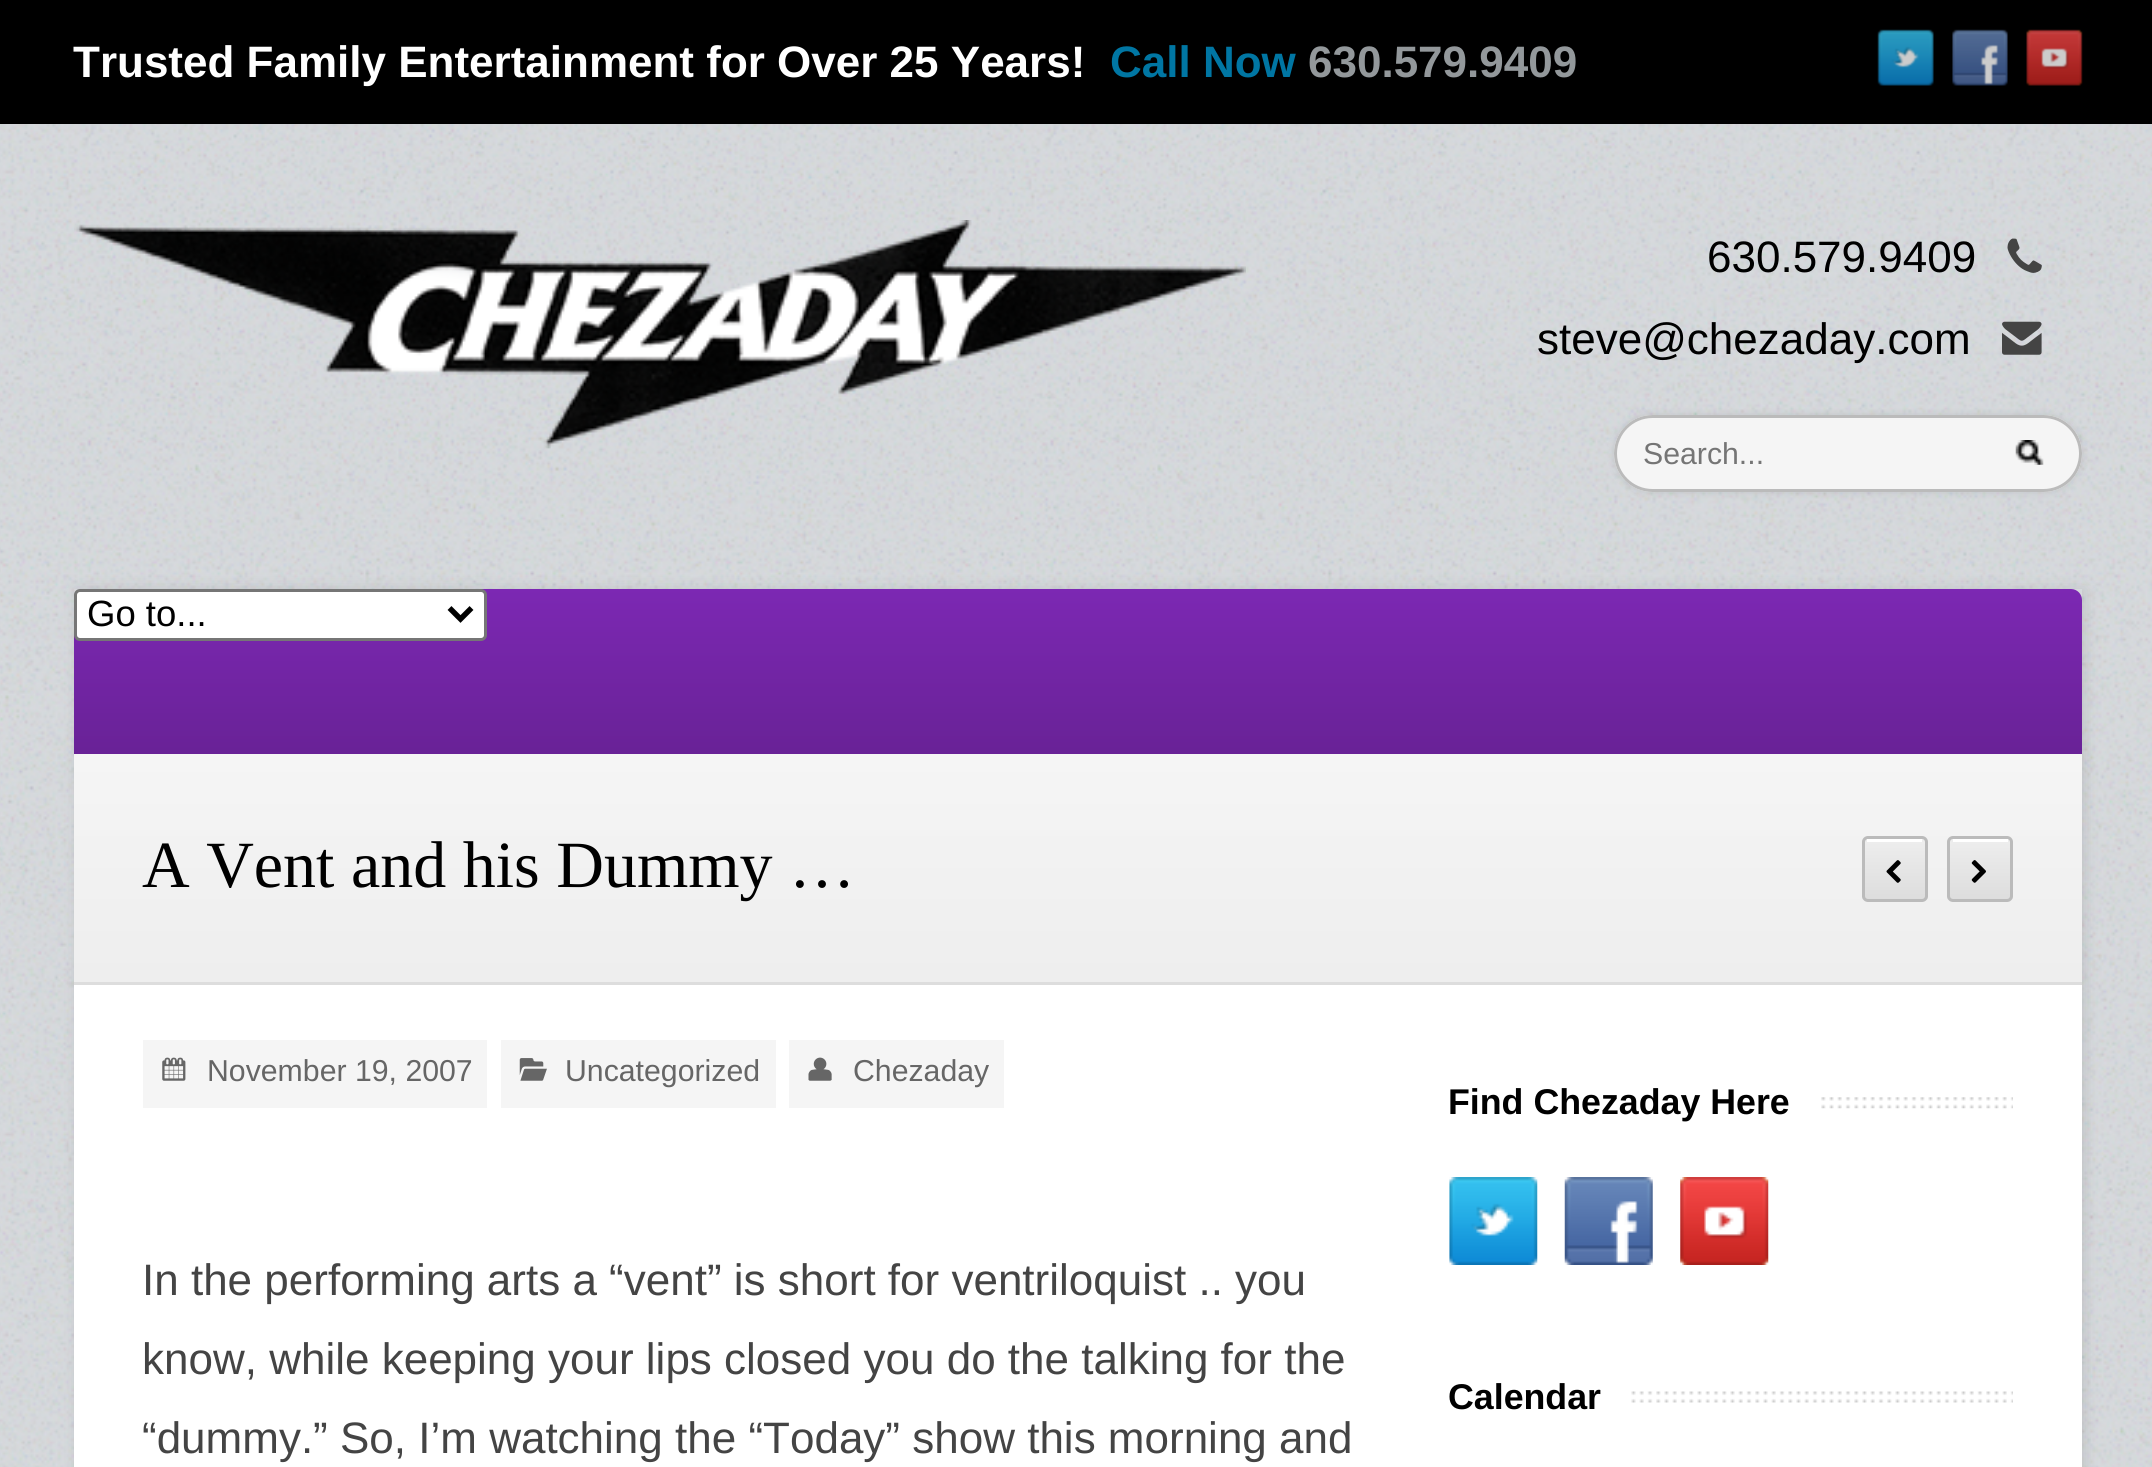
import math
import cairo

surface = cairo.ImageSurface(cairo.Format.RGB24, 2152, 1467)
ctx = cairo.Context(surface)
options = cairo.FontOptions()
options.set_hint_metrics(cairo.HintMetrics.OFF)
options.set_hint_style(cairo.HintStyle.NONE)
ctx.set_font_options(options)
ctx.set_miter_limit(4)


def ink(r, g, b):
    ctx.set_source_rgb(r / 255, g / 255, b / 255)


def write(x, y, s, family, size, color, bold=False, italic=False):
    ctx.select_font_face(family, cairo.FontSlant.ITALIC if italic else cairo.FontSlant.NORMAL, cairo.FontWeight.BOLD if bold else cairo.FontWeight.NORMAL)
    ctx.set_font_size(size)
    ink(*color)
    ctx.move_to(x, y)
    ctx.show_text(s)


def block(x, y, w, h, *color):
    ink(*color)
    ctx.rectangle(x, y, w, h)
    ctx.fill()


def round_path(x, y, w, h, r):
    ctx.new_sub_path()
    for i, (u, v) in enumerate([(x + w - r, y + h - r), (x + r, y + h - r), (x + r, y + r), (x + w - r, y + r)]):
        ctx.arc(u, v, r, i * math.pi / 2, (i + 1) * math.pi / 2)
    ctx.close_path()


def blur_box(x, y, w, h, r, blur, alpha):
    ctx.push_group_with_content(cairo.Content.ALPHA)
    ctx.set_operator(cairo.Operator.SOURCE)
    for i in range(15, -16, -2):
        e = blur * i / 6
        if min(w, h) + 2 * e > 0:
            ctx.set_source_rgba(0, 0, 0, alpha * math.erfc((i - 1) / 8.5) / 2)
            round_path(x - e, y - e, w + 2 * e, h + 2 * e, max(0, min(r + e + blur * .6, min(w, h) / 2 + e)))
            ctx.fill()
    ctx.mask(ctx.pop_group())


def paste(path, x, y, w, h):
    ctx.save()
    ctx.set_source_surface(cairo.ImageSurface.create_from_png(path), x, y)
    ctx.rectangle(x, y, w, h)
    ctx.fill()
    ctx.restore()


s1 = dict(family="Liberation Sans", size=44, color=(255, 255, 255), bold=True)
s2 = dict(family="Liberation Sans", size=44, color=(0, 118, 163), bold=True)
s3 = dict(family="Liberation Sans", size=44, color=(147, 152, 155), bold=True)
s4 = dict(family="Liberation Sans", size=44, color=(0, 0, 0))
s5 = dict(family="Liberation Sans", size=30.25, color=(117, 117, 117))
s6 = dict(family="Liberation Sans", size=36.5, color=(0, 0, 0))
s7 = dict(family="Liberation Serif", size=66, color=(0, 0, 0))
s8 = dict(family="Liberation Sans", size=30.25, color=(102, 102, 102))
s9 = dict(family="Liberation Sans", size=44, color=(68, 68, 68))
s10 = dict(family="Liberation Sans", size=35.75, color=(0, 0, 0), bold=True)

ink(255, 255, 255)
ctx.paint()
paste("pic1.png", 0, 124, 2152, 1343)
block(0, 0, 2152, 124, 0, 0, 0)
write(73, 77, "Trusted Family Entertainment for Over 25 Years!", **s1)
write(1110, 77, "Call Now", **s2)
write(1308, 77, "630.579.9409", **s3)
paste("pic2.png", 1877, 29, 57, 57)
paste("pic3.png", 1952, 29, 56, 57)
paste("pic4.png", 2026, 29, 57, 57)
paste("pic5.png", 74, 220, 1172, 229)
write(1707, 272, "630.579.9409", **s4)
paste("pic6.png", 2007, 238, 35, 35)
write(1537, 354, "steve@chezaday.com", **s4)
paste("pic7.png", 2002, 321, 40, 34)
ink(0, 0, 0)
blur_box(1614, 415, 468, 77, 38.5, 4, 0.1)
ink(245, 245, 245)
round_path(1614, 415, 468, 77, 38.5)
ctx.fill()
paste("pic8.png", 2015, 440, 29, 25)
round_path(1615.5, 416.5, 465, 74, 37)
ink(187, 187, 187)
ctx.set_line_width(3)
ctx.stroke()
write(1643, 464, "Search...", **s5)
ctx.save()
ctx.set_fill_rule(cairo.FillRule.EVEN_ODD)
ctx.new_path()
ctx.move_to(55, 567)
ctx.line_to(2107, 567)
ctx.line_to(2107, 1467)
ctx.line_to(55, 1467)
ctx.close_path()
ctx.move_to(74, 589)
ctx.line_to(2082, 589)
ctx.line_to(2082, 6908)
ctx.line_to(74, 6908)
ctx.close_path()
ctx.clip()
ink(0, 0, 0)
blur_box(77, 589, 2008, 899, 0, 7, 0.1)
ctx.restore()
gradient = cairo.LinearGradient(74, 589, 74, 751)
gradient.add_color_stop_rgba(0, 0.486, 0.157, 0.702, 1)
gradient.add_color_stop_rgba(1, 0.412, 0.133, 0.592, 1)
ctx.set_source(gradient)
ctx.new_path()
ctx.move_to(85, 589)
ctx.line_to(2071, 589)
ctx.curve_to(2077, 589, 2082, 594, 2082, 600)
ctx.line_to(2082, 751)
ctx.line_to(74, 751)
ctx.line_to(74, 600)
ctx.curve_to(74, 594, 79, 589, 85, 589)
ctx.close_path()
ctx.fill()
block(74, 751, 2008, 3, 105, 34, 151)
ink(255, 255, 255)
round_path(75.5, 590.5, 410, 49, 4.5)
ctx.fill_preserve()
ink(118, 118, 118)
ctx.stroke()
ctx.new_path()
ctx.move_to(449.5, 608)
ctx.line_to(460.5, 619)
ctx.line_to(471.5, 608)
ink(0, 0, 0)
ctx.set_line_width(5.5)
ctx.stroke()
write(87, 626, "Go to...", **s6)
block(74, 985, 2008, 482, 255, 255, 255)
gradient = cairo.LinearGradient(74, 754, 74, 982)
gradient.add_color_stop_rgba(0, 0.961, 0.961, 0.961, 1)
gradient.add_color_stop_rgba(1, 0.933, 0.933, 0.933, 1)
ctx.set_source(gradient)
ctx.rectangle(74, 754, 2008, 228)
ctx.fill()
block(74, 982, 2008, 3, 221, 221, 221)
write(142, 887, "A Vent and his Dummy …", **s7)
ctx.save()
round_path(1862, 836, 66, 66, 6)
ctx.clip()
gradient = cairo.LinearGradient(1865, 839, 1865, 899)
gradient.add_color_stop_rgba(0, 0.933, 0.933, 0.933, 1)
gradient.add_color_stop_rgba(1, 0.867, 0.867, 0.867, 1)
ctx.set_source(gradient)
ctx.rectangle(1862, 839, 66, 60)
ctx.fill()
ctx.restore()
round_path(1863.5, 837.5, 63, 63, 4.5)
ink(187, 187, 187)
ctx.set_line_width(3)
ctx.stroke()
block(1867, 839, 55, 3, 255, 255, 255)
paste("pic9.png", 1886, 860, 15, 23)
ctx.save()
round_path(1947, 836, 66, 66, 6)
ctx.clip()
gradient = cairo.LinearGradient(1950, 839, 1950, 899)
gradient.add_color_stop_rgba(0, 0.933, 0.933, 0.933, 1)
gradient.add_color_stop_rgba(1, 0.867, 0.867, 0.867, 1)
ctx.set_source(gradient)
ctx.rectangle(1947, 839, 66, 60)
ctx.fill()
ctx.restore()
round_path(1948.5, 837.5, 63, 63, 4.5)
ink(187, 187, 187)
ctx.stroke()
block(1953, 839, 55, 3, 255, 255, 255)
paste("pic10.png", 1971, 860, 15, 23)
block(143, 1040, 344, 68, 245, 245, 245)
paste("pic11.png", 162, 1057, 24, 24)
write(207, 1081, "November 19, 2007", **s8)
block(501, 1040, 275, 68, 245, 245, 245)
paste("pic12.png", 519, 1058, 28, 23)
write(565, 1081, "Uncategorized", **s8)
block(789, 1040, 215, 68, 245, 245, 245)
paste("pic13.png", 808, 1057, 24, 24)
write(853, 1081, "Chezaday", **s8)
write(142, 1295, "In the performing arts a “vent” is short for ventriloquist .. you", **s9)
write(142, 1374, "know, while keeping your lips closed you do the talking for the", **s9)
write(142, 1453, "“dummy.” So, I’m watching the “Today” show this morning and", **s9)
paste("pic14.png", 1821, 1097, 192, 12)
write(1448, 1114, "Find Chezaday Here", **s10)
paste("pic15.png", 1449, 1177, 89, 88)
paste("pic16.png", 1564, 1177, 89, 88)
paste("pic17.png", 1680, 1177, 89, 88)
paste("pic18.png", 1631, 1391, 382, 12)
write(1448, 1409, "Calendar", **s10)
surface.write_to_png("screenshot.png")
